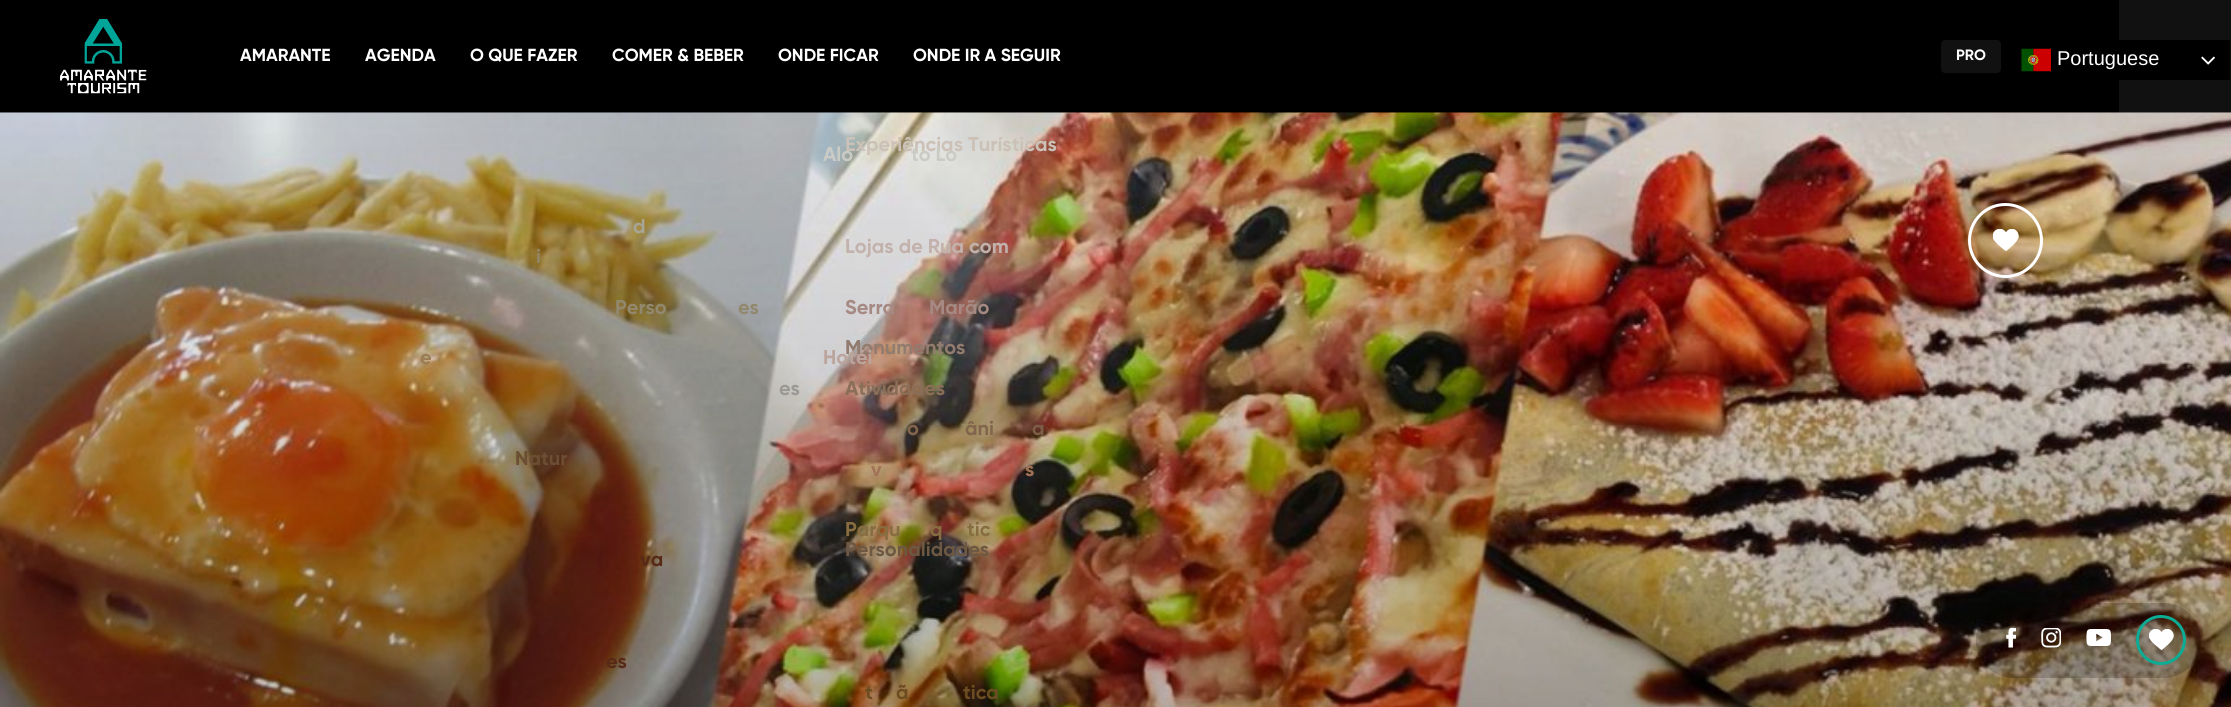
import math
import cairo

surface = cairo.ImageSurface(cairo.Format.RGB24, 2231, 707)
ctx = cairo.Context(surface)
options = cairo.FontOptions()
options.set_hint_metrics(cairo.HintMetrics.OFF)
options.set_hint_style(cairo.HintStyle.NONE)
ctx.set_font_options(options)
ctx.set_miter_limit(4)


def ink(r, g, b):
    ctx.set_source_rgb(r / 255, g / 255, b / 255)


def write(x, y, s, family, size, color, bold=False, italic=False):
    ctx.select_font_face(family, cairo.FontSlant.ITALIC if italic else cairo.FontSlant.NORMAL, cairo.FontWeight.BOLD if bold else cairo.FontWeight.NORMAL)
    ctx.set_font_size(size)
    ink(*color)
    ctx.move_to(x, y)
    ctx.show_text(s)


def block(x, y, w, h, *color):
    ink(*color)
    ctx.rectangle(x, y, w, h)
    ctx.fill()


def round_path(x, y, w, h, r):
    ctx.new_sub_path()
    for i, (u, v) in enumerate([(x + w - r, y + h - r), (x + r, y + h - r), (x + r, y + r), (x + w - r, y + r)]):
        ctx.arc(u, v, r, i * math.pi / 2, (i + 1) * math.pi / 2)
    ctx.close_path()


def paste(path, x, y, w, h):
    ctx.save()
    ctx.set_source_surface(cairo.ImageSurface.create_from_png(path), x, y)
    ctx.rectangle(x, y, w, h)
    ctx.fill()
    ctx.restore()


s1 = dict(family="Gilroy", size=17.5, color=(255, 255, 255), bold=True)
s2 = dict(family="Gilroy", size=20, color=(167, 164, 152), bold=True)
s3 = dict(family="Gilroy", size=20, color=(145, 136, 110), bold=True)
s4 = dict(family="Gilroy", size=20, color=(155, 153, 147), bold=True)
s5 = dict(family="Gilroy", size=20, color=(146, 134, 103), bold=True)
s6 = dict(family="Gilroy", size=20, color=(155, 124, 84), bold=True)
s7 = dict(family="Gilroy", size=20, color=(203, 193, 183), bold=True)
s8 = dict(family="Gilroy", size=20, color=(165, 137, 130), bold=True)
s9 = dict(family="Gilroy", size=20, color=(139, 110, 88), bold=True)
s10 = dict(family="Gilroy", size=20, color=(161, 114, 86), bold=True)
s11 = dict(family="Gilroy", size=20, color=(195, 177, 172), bold=True)
s12 = dict(family="Gilroy", size=20, color=(146, 124, 111), bold=True)
s13 = dict(family="Gilroy", size=20, color=(131, 101, 77), bold=True)
s14 = dict(family="Gilroy", size=20, color=(107, 78, 51), bold=True)
s15 = dict(family="Gilroy", size=20, color=(125, 93, 70), bold=True)
s16 = dict(family="Gilroy", size=20, color=(135, 109, 64), bold=True)
s17 = dict(family="Gilroy", size=20, color=(108, 77, 34), bold=True)
s18 = dict(family="Gilroy", size=20, color=(109, 88, 67), bold=True)
s19 = dict(family="Gilroy", size=20, color=(89, 41, 23), bold=True)
s20 = dict(family="Gilroy", size=20, color=(202, 203, 197), bold=True)
s21 = dict(family="Gilroy", size=20, color=(187, 164, 155), bold=True)
s22 = dict(family="Gilroy", size=15, color=(255, 255, 255), bold=True)
s23 = dict(family="Liberation Sans", size=20, color=(255, 255, 255))

ink(0, 0, 0)
ctx.paint()
paste("pic1.png", 60, 19, 87, 75)
write(240, 61, "AMARANTE", **s1)
block(2119, 0, 112, 113, 17, 17, 17)
paste("pic4.png", 0, 112, 2231, 595)
write(633, 233, "d", **s2)
write(615, 314, "Perso", **s3)
write(738, 314, "es", **s3)
write(779, 395, "es", **s4)
write(365, 61, "AGENDA", **s1)
write(536, 263, "i", **s5)
write(420, 364, "e", **s6)
write(470, 61, "O QUE FAZER", **s1)
write(845, 151, "Experiências Turísticas", **s7)
write(845, 314, "Serra", **s8)
write(929, 314, "Marão", **s8)
write(845, 395, "Atividades", **s9)
write(871, 476, "v", **s10)
write(1025, 476, "s", **s10)
write(845, 253, "Lojas de Rua com", **s11)
write(845, 354, "Monumentos", **s12)
write(907, 435, "o", **s13)
write(965, 435, "âni", **s13)
write(515, 465, "Natur", **s14)
write(1032, 435, "a", **s15)
write(845, 536, "Parqu", **s16)
write(930, 536, "q", **s16)
write(967, 536, "tic", **s16)
write(865, 699, "t", **s17)
write(896, 699, "ã", **s17)
write(963, 699, "tica", **s17)
write(845, 556, "Personalidades", **s18)
write(640, 566, "va", **s19)
write(606, 668, "es", **s19)
write(612, 61, "COMER & BEBER", **s1)
write(778, 61, "ONDE FICAR", **s1)
write(823, 161, "Alo", **s20)
write(911, 161, "to Lo", **s20)
write(823, 364, "Hotéi", **s21)
write(913, 61, "ONDE IR A SEGUIR", **s1)
ink(17, 17, 17)
round_path(1941, 40, 60, 33, 4)
ctx.fill()
write(1956, 60, "PRO", **s22)
block(2119, 40, 111, 40, 0, 0, 0)
paste("pic2.png", 2021, 48, 30, 24)
write(2057, 65, "Portuguese", **s23)
paste("pic3.png", 2201, 56, 14, 9)
ctx.arc(2005.5, 240.5, 36, 0, 2 * math.pi)
ctx.set_line_width(3)
ctx.stroke()
paste("pic5.png", 1993, 229, 26, 22)
ctx.set_source_rgba(0, 0, 0, 0.2)
round_path(1976, 603, 225, 75, 37.5)
ctx.fill()
paste("pic6.png", 2006, 628, 10, 20)
paste("pic7.png", 2041, 628, 20, 20)
paste("pic8.png", 2086, 629, 25, 17)
ctx.arc(2161, 640, 23.5, 0, 2 * math.pi)
ink(13, 172, 149)
ctx.stroke()
paste("pic9.png", 2149, 629, 25, 22)
surface.write_to_png("screenshot.png")
